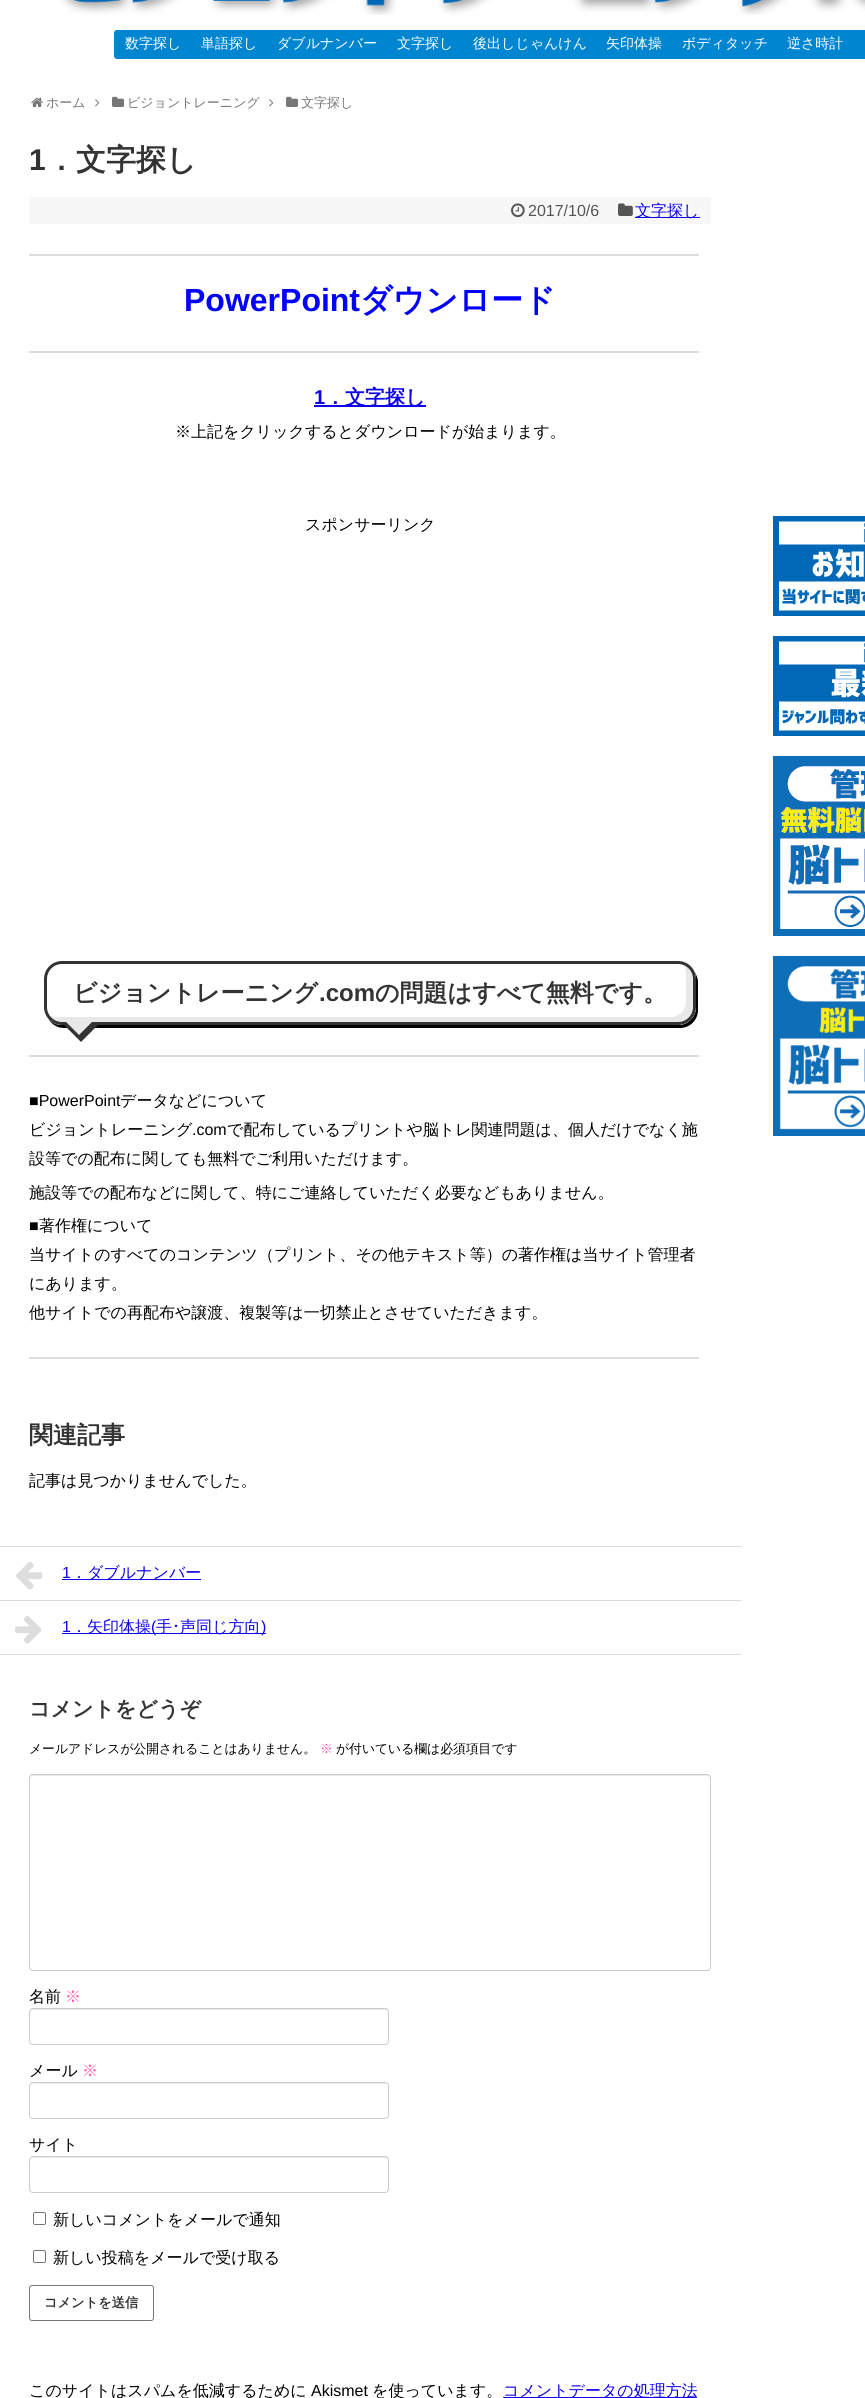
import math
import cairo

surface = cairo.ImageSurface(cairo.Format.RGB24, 865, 2398)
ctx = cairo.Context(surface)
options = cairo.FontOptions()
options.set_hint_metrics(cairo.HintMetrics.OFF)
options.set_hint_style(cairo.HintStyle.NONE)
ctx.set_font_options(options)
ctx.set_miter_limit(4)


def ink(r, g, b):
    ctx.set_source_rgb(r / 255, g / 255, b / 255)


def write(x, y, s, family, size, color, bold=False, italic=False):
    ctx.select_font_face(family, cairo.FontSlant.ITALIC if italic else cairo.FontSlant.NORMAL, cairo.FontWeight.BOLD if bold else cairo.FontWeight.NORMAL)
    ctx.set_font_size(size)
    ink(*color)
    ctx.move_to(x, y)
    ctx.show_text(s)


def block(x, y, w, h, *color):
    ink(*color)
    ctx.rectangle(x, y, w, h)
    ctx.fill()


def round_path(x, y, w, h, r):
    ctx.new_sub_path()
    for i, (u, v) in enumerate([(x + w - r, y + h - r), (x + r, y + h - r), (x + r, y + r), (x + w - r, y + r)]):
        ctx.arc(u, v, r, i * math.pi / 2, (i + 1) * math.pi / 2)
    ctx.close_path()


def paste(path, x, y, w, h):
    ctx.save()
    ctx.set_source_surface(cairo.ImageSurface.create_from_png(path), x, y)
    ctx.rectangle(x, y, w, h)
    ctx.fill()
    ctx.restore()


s1 = dict(family="WenQuanYi Zen Hei Medium", size=14, color=(255, 255, 255))
s2 = dict(family="WenQuanYi Zen Hei Medium", size=13, color=(119, 119, 119))
s3 = dict(family="Liberation Sans", size=30, color=(51, 51, 51), bold=True)
s4 = dict(family="WenQuanYi Zen Hei", size=30, color=(51, 51, 51), bold=True)
s5 = dict(family="Liberation Sans", size=16, color=(85, 85, 85))
s6 = dict(family="WenQuanYi Zen Hei Medium", size=16, color=(13, 2, 234))
s7 = dict(family="Liberation Sans", size=32, color=(0, 0, 255), bold=True)
s8 = dict(family="WenQuanYi Zen Hei", size=32, color=(0, 0, 255), bold=True)
s9 = dict(family="Liberation Sans", size=20, color=(13, 2, 234), bold=True)
s10 = dict(family="WenQuanYi Zen Hei", size=20, color=(13, 2, 234), bold=True)
s11 = dict(family="WenQuanYi Zen Hei Medium", size=16, color=(0, 0, 0))
s12 = dict(family="WenQuanYi Zen Hei", size=24, color=(51, 51, 51), bold=True)
s13 = dict(family="Liberation Sans", size=24, color=(51, 51, 51), bold=True)
s14 = dict(family="Liberation Sans", size=16, color=(0, 0, 0))
s15 = dict(family="Liberation Sans", size=16, color=(13, 2, 234))
s16 = dict(family="IPAPGothic", size=16, color=(13, 2, 234))
s17 = dict(family="WenQuanYi Zen Hei", size=21, color=(51, 51, 51), bold=True)
s18 = dict(family="WenQuanYi Zen Hei Medium", size=12.8, color=(0, 0, 0))
s19 = dict(family="WenQuanYi Zen Hei Medium", size=12.8, color=(254, 86, 170))
s20 = dict(family="WenQuanYi Zen Hei Medium", size=16, color=(254, 86, 170))
s21 = dict(family="WenQuanYi Zen Hei", size=13.25, color=(51, 51, 51), bold=True)

ink(255, 255, 255)
ctx.paint()
paste("pic1.png", 59, 0, 806, 15)
ink(0, 134, 209)
round_path(114.5, 30.5, 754, 28, 2.5)
ctx.fill_preserve()
ctx.set_line_width(1)
ctx.stroke()
write(125, 48, "数字探し", **s1)
write(201, 48, "単語探し", **s1)
write(277, 48, "ダブルナンバー", **s1)
write(397, 48, "文字探し", **s1)
write(473, 48, "後出しじゃんけん", **s1)
write(606, 48, "矢印体操", **s1)
write(682, 48, "ボディタッチ", **s1)
write(787, 48, "逆さ時計", **s1)
paste("pic2.png", 31, 97, 12, 10)
write(46, 107, "ホーム", **s2)
paste("pic3.png", 95, 99, 5, 8)
paste("pic4.png", 112, 96, 13, 11)
write(127, 107, "ビジョントレーニング", **s2)
paste("pic3.png", 269, 99, 5, 8)
paste("pic4.png", 286, 96, 13, 11)
write(301, 107, "文字探し", **s2)
write(29, 170, "1", **s3)
write(46, 170, "．文字探し", **s4)
block(29, 197, 682, 27, 247, 247, 247)
paste("pic5.png", 511, 203, 14, 15)
write(528, 216, "2017/10/6", **s5)
paste("pic6.png", 618, 203, 15, 13)
block(635, 217, 65, 1, 13, 2, 234)
write(635, 216, "文字探し", **s6)
block(29, 254, 670, 2, 221, 221, 221)
write(184, 311, "PowerPoint", **s7)
write(360, 311, "ダウンロード", **s8)
block(29, 351, 670, 2, 221, 221, 221)
write(314, 404, "1", **s9)
block(314, 405, 112, 2, 13, 2, 234)
write(325, 404, "．文字探し", **s10)
write(175, 437, "※上記をクリックするとダウンロードが始まります。", **s11)
write(305, 530, "スポンサーリンク", **s11)
ctx.new_path()
ctx.move_to(48, 1018)
ctx.curve_to(51, 1024, 57, 1028, 64, 1028)
ctx.line_to(680, 1028)
ctx.curve_to(690, 1028, 698, 1020, 698, 1010)
ctx.line_to(698, 982)
ctx.curve_to(698, 978, 696, 974, 694, 971)
ctx.curve_to(695, 973, 696, 976, 696, 979)
ctx.line_to(696, 1007)
ctx.curve_to(696, 1017, 688, 1025, 678, 1025)
ctx.line_to(62, 1025)
ctx.curve_to(56, 1025, 51, 1022, 48, 1018)
ctx.close_path()
ctx.fill()
ink(255, 255, 255)
round_path(44, 961, 652, 64, 18)
ctx.fill()
ink(232, 232, 232)
ctx.new_path()
ctx.move_to(50, 1016)
ctx.curve_to(53, 1020, 57, 1022, 62, 1022)
ctx.line_to(678, 1022)
ctx.curve_to(686, 1022, 693, 1015, 693, 1007)
ctx.line_to(693, 979)
ctx.curve_to(693, 972, 689, 967, 683, 965)
ctx.curve_to(685, 967, 686, 971, 686, 974)
ctx.line_to(686, 1002)
ctx.curve_to(686, 1010, 679, 1017, 671, 1017)
ctx.line_to(55, 1017)
ctx.close_path()
ctx.fill()
round_path(45.5, 962.5, 649, 61, 16.5)
ink(51, 51, 51)
ctx.set_line_width(3)
ctx.stroke()
write(73, 1001, "ビジョントレーニング", **s12)
write(319, 1001, ".com", **s13)
write(375, 1001, "の問題はすべて無料です。", **s12)
ctx.new_path()
ctx.move_to(61, 1022)
ctx.line_to(101, 1022)
ctx.line_to(81, 1042)
ctx.close_path()
ctx.fill()
ink(232, 232, 232)
ctx.new_path()
ctx.move_to(65, 1021)
ctx.line_to(93, 1021)
ctx.line_to(79, 1035)
ctx.close_path()
ctx.fill()
block(29, 1055, 670, 2, 221, 221, 221)
write(29, 1106, "■PowerPoint", **s14)
write(120, 1106, "データなどについて", **s11)
write(29, 1135, "ビジョントレーニング", **s11)
write(192, 1135, ".com", **s14)
write(227, 1135, "で配布しているプリントや脳トレ関連問題は、個人だけでなく施", **s11)
write(29, 1164, "設等での配布に関しても無料でご利用いただけます。", **s11)
write(29, 1198, "施設等での配布などに関して、特にご連絡していただく必要などもありません。", **s11)
write(29, 1231, "■", **s14)
write(39, 1231, "著作権について", **s11)
write(29, 1260, "当サイトのすべてのコンテンツ（プリント、その他テキスト等）の著作権は当サイト管理者", **s11)
write(29, 1289, "にあります。", **s11)
write(29, 1318, "他サイトでの再配布や譲渡、複製等は一切禁止とさせていただきます。", **s11)
block(29, 1357, 670, 2, 221, 221, 221)
write(29, 1443, "関連記事", **s12)
write(29, 1486, "記事は見つかりませんでした。", **s11)
block(0, 1546, 741, 1, 221, 221, 221)
block(0, 1600, 741, 1, 221, 221, 221)
paste("pic7.png", 16, 1562, 27, 28)
write(62, 1578, "1", **s15)
block(62, 1579, 139, 1, 13, 2, 234)
write(71, 1578, "．ダブルナンバー", **s6)
block(0, 1654, 741, 1, 221, 221, 221)
paste("pic8.png", 15, 1615, 27, 29)
write(62, 1632, "1", **s15)
block(62, 1633, 204, 1, 13, 2, 234)
write(71, 1632, "．矢印体操", **s6)
write(151, 1632, "(", **s15)
write(156, 1632, "手", **s6)
write(172, 1632, "･", **s16)
write(180, 1632, "声同じ方向", **s6)
write(261, 1632, ")", **s15)
write(29, 1716, "コメントをどうぞ", **s17)
write(29, 1753, "メールアドレスが公開されることはありません。", **s18)
write(320, 1753, "※", **s19)
write(336, 1753, "が付いている欄は必須項目です", **s18)
ink(236, 236, 236)
ctx.new_path()
ctx.move_to(33, 1776)
ctx.line_to(707, 1776)
ctx.curve_to(709, 1776, 710, 1777, 710, 1779)
ctx.line_to(710, 1778)
ctx.curve_to(710, 1776, 709, 1775, 707, 1775)
ctx.line_to(33, 1775)
ctx.curve_to(31, 1775, 30, 1776, 30, 1778)
ctx.line_to(30, 1779)
ctx.curve_to(30, 1777, 31, 1776, 33, 1776)
ctx.close_path()
ctx.fill()
round_path(29.5, 1774.5, 681, 196, 3.5)
ink(204, 204, 204)
ctx.set_line_width(1)
ctx.stroke()
write(29, 2002, "名前", **s11)
write(65, 2002, "※", **s20)
ink(236, 236, 236)
ctx.new_path()
ctx.move_to(33, 2010)
ctx.line_to(385, 2010)
ctx.curve_to(387, 2010, 388, 2011, 388, 2013)
ctx.curve_to(388, 2011, 387, 2009, 385, 2009)
ctx.line_to(33, 2009)
ctx.line_to(31, 2010)
ctx.line_to(30, 2013)
ctx.curve_to(30, 2011, 31, 2010, 33, 2010)
ctx.close_path()
ctx.fill()
round_path(29.5, 2008.5, 359, 36, 3.5)
ink(204, 204, 204)
ctx.stroke()
write(29, 2076, "メール", **s11)
write(82, 2076, "※", **s20)
ink(236, 236, 236)
ctx.new_path()
ctx.move_to(33, 2084)
ctx.line_to(385, 2084)
ctx.curve_to(387, 2084, 388, 2085, 388, 2087)
ctx.curve_to(388, 2085, 387, 2083, 385, 2083)
ctx.line_to(33, 2083)
ctx.line_to(31, 2084)
ctx.line_to(30, 2087)
ctx.curve_to(30, 2085, 31, 2084, 33, 2084)
ctx.close_path()
ctx.fill()
round_path(29.5, 2082.5, 359, 36, 3.5)
ink(204, 204, 204)
ctx.stroke()
write(29, 2150, "サイト", **s11)
ink(236, 236, 236)
ctx.new_path()
ctx.move_to(33, 2158)
ctx.line_to(385, 2158)
ctx.curve_to(387, 2158, 388, 2159, 388, 2161)
ctx.curve_to(388, 2159, 387, 2157, 385, 2157)
ctx.line_to(33, 2157)
ctx.line_to(31, 2158)
ctx.line_to(30, 2161)
ctx.curve_to(30, 2159, 31, 2158, 33, 2158)
ctx.close_path()
ctx.fill()
round_path(29.5, 2156.5, 359, 36, 3.5)
ink(204, 204, 204)
ctx.stroke()
round_path(33.5, 2212.5, 12, 12, 1.5)
ink(118, 118, 118)
ctx.stroke()
write(53, 2225, "新しいコメントをメールで通知", **s11)
round_path(33.5, 2250.5, 12, 12, 1.5)
ink(118, 118, 118)
ctx.stroke()
write(53, 2263, "新しい投稿をメールで受け取る", **s11)
round_path(29.5, 2285.5, 124, 35, 2.5)
ink(119, 119, 119)
ctx.stroke()
write(44, 2307, "コメントを送信", **s21)
write(29, 2396, "このサイトはスパムを低減するために", **s11)
write(311, 2396, "Akismet", **s14)
write(372, 2396, "を使っています。", **s11)
block(503, 2397, 194, 1, 13, 2, 234)
write(503, 2396, "コメントデータの処理方法", **s6)
paste("pic9.png", 773, 516, 92, 100)
paste("pic10.png", 773, 636, 92, 100)
paste("pic11.png", 773, 756, 92, 180)
paste("pic12.png", 773, 956, 92, 180)
surface.write_to_png("screenshot.png")
